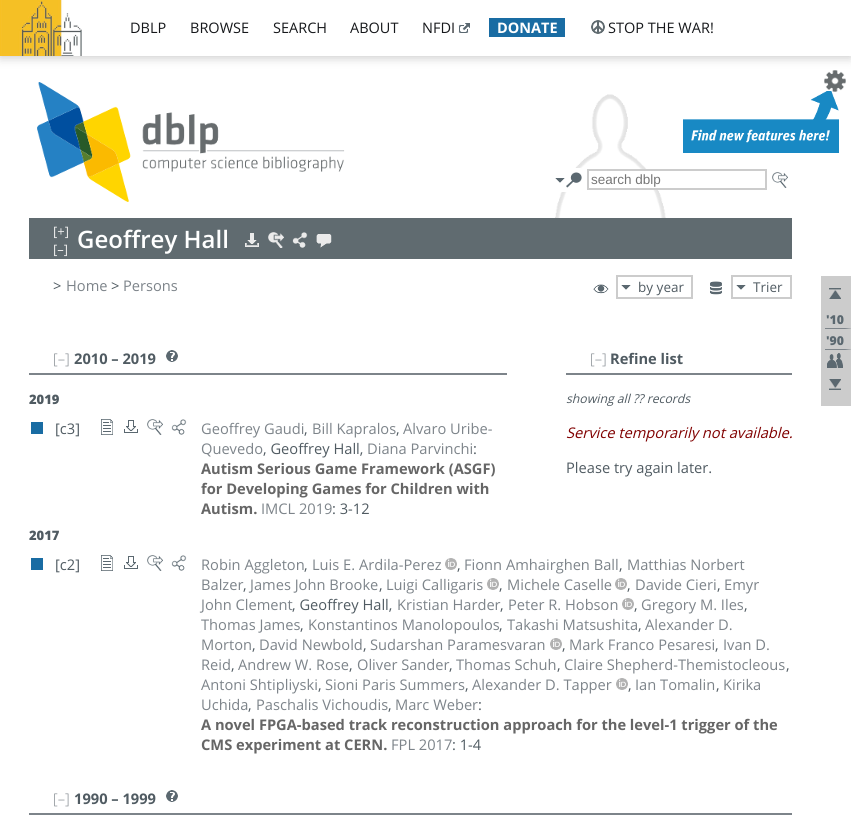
import math
import cairo

surface = cairo.ImageSurface(cairo.Format.RGB24, 851, 837)
ctx = cairo.Context(surface)
options = cairo.FontOptions()
options.set_hint_metrics(cairo.HintMetrics.OFF)
options.set_hint_style(cairo.HintStyle.NONE)
ctx.set_font_options(options)
ctx.set_miter_limit(4)


def ink(r, g, b):
    ctx.set_source_rgb(r / 255, g / 255, b / 255)


def write(x, y, s, family, size, color, bold=False, italic=False):
    ctx.select_font_face(family, cairo.FontSlant.ITALIC if italic else cairo.FontSlant.NORMAL, cairo.FontWeight.BOLD if bold else cairo.FontWeight.NORMAL)
    ctx.set_font_size(size)
    ink(*color)
    ctx.move_to(x, y)
    ctx.show_text(s)


def block(x, y, w, h, *color):
    ink(*color)
    ctx.rectangle(x, y, w, h)
    ctx.fill()


def round_path(x, y, w, h, r):
    ctx.new_sub_path()
    for i, (u, v) in enumerate([(x + w - r, y + h - r), (x + r, y + h - r), (x + r, y + r), (x + w - r, y + r)]):
        ctx.arc(u, v, r, i * math.pi / 2, (i + 1) * math.pi / 2)
    ctx.close_path()


def blur_box(x, y, w, h, r, blur, alpha):
    ctx.push_group_with_content(cairo.Content.ALPHA)
    ctx.set_operator(cairo.Operator.SOURCE)
    for i in range(15, -16, -2):
        e = blur * i / 6
        if min(w, h) + 2 * e > 0:
            ctx.set_source_rgba(0, 0, 0, alpha * math.erfc((i - 1) / 8.5) / 2)
            round_path(x - e, y - e, w + 2 * e, h + 2 * e, max(0, min(r + e + blur * .6, min(w, h) / 2 + e)))
            ctx.fill()
    ctx.mask(ctx.pop_group())


def paste(path, x, y, w, h):
    ctx.save()
    ctx.set_source_surface(cairo.ImageSurface.create_from_png(path), x, y)
    ctx.rectangle(x, y, w, h)
    ctx.fill()
    ctx.restore()


s1 = dict(family="Open Sans", size=14.5, color=(22, 24, 27))
s2 = dict(family="Open Sans", size=14.5, color=(255, 255, 255), bold=True)
s3 = dict(family="Liberation Sans", size=13.5, color=(117, 117, 117))
s4 = dict(family="Open Sans", size=13, color=(235, 235, 235))
s5 = dict(family="Open Sans SemiBold", size=24, color=(255, 255, 255))
s6 = dict(family="Open Sans", size=14.65, color=(80, 91, 98))
s7 = dict(family="Open Sans", size=14.65, color=(125, 132, 138))
s8 = dict(family="Open Sans", size=13.5, color=(80, 91, 98))
s9 = dict(family="Open Sans ExtraBold", size=12.25, color=(91, 104, 112))
s10 = dict(family="Open Sans Light", size=14.65, color=(125, 132, 138))
s11 = dict(family="Open Sans", size=14.65, color=(80, 91, 98), bold=True)
s12 = dict(family="Open Sans", size=12.25, color=(80, 91, 98), italic=True)
s13 = dict(family="Open Sans", size=14.65, color=(128, 0, 0), italic=True)
s14 = dict(family="Open Sans ExtraBold", size=13, color=(80, 91, 98))
s15 = dict(family="Open Sans", size=14.65, color=(102, 102, 102), bold=True)

ink(255, 255, 255)
ctx.paint()
paste("pic7.png", 683, 91, 156, 62)
paste("pic6.png", 824, 70, 22, 22)
ink(0, 0, 0)
blur_box(0, 1, 851, 57, 0, 5, 0.2)
block(82, 0, 769, 56, 255, 255, 255)
paste("pic1.png", 0, 0, 82, 56)
write(130, 33, "DBLP", **s1)
write(190, 33, "BROWSE", **s1)
write(273, 33, "SEARCH", **s1)
write(350, 33, "ABOUT", **s1)
write(422, 33, "NFDI", **s1)
paste("pic2.png", 458, 23, 12, 10)
block(489, 18, 76, 19, 25, 108, 163)
write(497, 33, "DONATE", **s2)
paste("pic3.png", 591, 20, 14, 14)
write(608, 33, "STOP THE WAR!", **s1)
paste("pic4.png", 555, 94, 111, 124)
paste("pic5.png", 37, 82, 308, 120)
block(561, 168, 20, 24, 255, 255, 255)
paste("pic8.png", 555, 178, 10, 5)
paste("pic9.png", 566, 172, 16, 16)
block(642, 171, 16, 17, 255, 255, 255)
ctx.rectangle(588, 170, 178, 19)
ink(204, 204, 204)
ctx.stroke()
write(591, 184, "search dblp", **s3)
paste("pic10.png", 772, 172, 16, 16)
block(29, 218, 763, 41, 96, 107, 112)
write(53, 236, "[+]", **s4)
write(53, 254, "[–]", **s4)
write(77, 248, "Geoffrey Hall", **s5)
paste("pic11.png", 245, 233, 14, 14)
paste("pic12.png", 268, 232, 16, 16)
paste("pic13.png", 292, 232, 16, 16)
paste("pic14.png", 316, 234, 16, 14)
write(53, 291, ">", **s6)
write(66, 291, "Home", **s7)
write(111, 291, ">", **s6)
write(123, 291, "Persons", **s7)
paste("pic15.png", 593, 284, 16, 10)
paste("pic8.png", 621, 285, 10, 5)
ctx.rectangle(617, 276, 75, 22)
ink(204, 204, 204)
ctx.stroke()
write(638, 292, "by year", **s8)
paste("pic16.png", 710, 281, 12, 14)
paste("pic8.png", 736, 285, 10, 5)
ctx.rectangle(732, 276, 59, 22)
ink(204, 204, 204)
ctx.stroke()
write(753, 292, "Trier", **s8)
block(821, 276, 30, 130, 204, 204, 204)
paste("pic17.png", 829, 288, 12, 11)
ink(125, 132, 138)
ctx.new_path()
ctx.move_to(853, 329)
ctx.line_to(825, 329)
ctx.line_to(825, 328)
ctx.line_to(845, 328)
ctx.close_path()
ctx.move_to(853, 350)
ctx.line_to(825, 350)
ctx.line_to(825, 349)
ctx.line_to(845, 349)
ctx.close_path()
ctx.fill()
write(826, 324, "'10", **s9)
write(826, 345, "'90", **s9)
paste("pic18.png", 827, 353, 16, 15)
paste("pic19.png", 829, 379, 12, 11)
block(566, 373, 226, 2, 125, 132, 138)
write(590, 364, "[–]", **s10)
write(610, 364, "Refine list", **s11)
write(566, 403, "showing all ?? records", **s12)
write(566, 438, "Service temporarily not available.", **s13)
write(566, 473, "Please try again later.", **s6)
block(29, 373, 478, 2, 125, 132, 138)
write(53, 364, "[–]", **s10)
write(74, 364, "2010 – 2019", **s11)
paste("pic20.png", 166, 350, 12, 12)
write(29, 404, "2019", **s14)
block(31, 422, 12, 12, 25, 108, 163)
write(55, 434, "[c3]", **s6)
paste("pic21.png", 101, 419, 12, 16)
paste("pic22.png", 124, 420, 14, 13)
paste("pic10.png", 147, 419, 16, 16)
paste("pic23.png", 171, 419, 16, 16)
write(201, 434, "Geoffrey Gaudi", **s7)
write(304, 434, ",", **s6)
write(312, 434, "Bill Kapralos", **s7)
write(396, 434, ",", **s6)
write(403, 434, "Alvaro Uribe-", **s7)
write(201, 454, "Quevedo", **s7)
write(263, 454, ", Geoffrey Hall,", **s6)
write(367, 454, "Diana Parvinchi", **s7)
write(473, 454, ":", **s6)
write(201, 474, "Autism Serious Game Framework (ASGF)", **s15)
write(201, 494, "for Developing Games for Children with", **s15)
write(201, 514, "Autism.", **s15)
write(261, 514, "IMCL 2019", **s7)
write(332, 514, ": 3-12", **s6)
write(29, 540, "2017", **s14)
block(31, 558, 12, 12, 25, 108, 163)
write(55, 570, "[c2]", **s6)
paste("pic21.png", 101, 555, 12, 16)
paste("pic22.png", 124, 556, 14, 13)
paste("pic10.png", 147, 555, 16, 16)
paste("pic23.png", 171, 555, 16, 16)
write(201, 570, "Robin Aggleton", **s7)
write(304, 570, ",", **s6)
write(312, 570, "Luis E. Ardila-Perez", **s7)
paste("pic24.png", 445, 558, 12, 12)
write(457, 570, ",", **s6)
write(464, 570, "Fionn Amhairghen Ball", **s7)
write(619, 570, ",", **s6)
write(627, 570, "Matthias Norbert", **s7)
write(201, 590, "Balzer", **s7)
write(243, 590, ",", **s6)
write(250, 590, "James John Brooke", **s7)
write(379, 590, ",", **s6)
write(386, 590, "Luigi Calligaris", **s7)
paste("pic24.png", 487, 578, 12, 12)
write(499, 590, ",", **s6)
write(507, 590, "Michele Caselle", **s7)
paste("pic24.png", 615, 578, 12, 12)
write(627, 590, ",", **s6)
write(635, 590, "Davide Cieri", **s7)
write(717, 590, ",", **s6)
write(724, 590, "Emyr", **s7)
write(201, 610, "John Clement", **s7)
write(292, 610, ", Geoffrey Hall,", **s6)
write(397, 610, "Kristian Harder", **s7)
write(500, 610, ",", **s6)
write(508, 610, "Peter R. Hobson", **s7)
paste("pic24.png", 622, 598, 12, 12)
write(634, 610, ",", **s6)
write(641, 610, "Gregory M. Iles", **s7)
write(744, 610, ",", **s6)
write(201, 630, "Thomas James", **s7)
write(300, 630, ",", **s6)
write(308, 630, "Konstantinos Manolopoulos", **s7)
write(499, 630, ",", **s6)
write(507, 630, "Takashi Matsushita", **s7)
write(638, 630, ",", **s6)
write(645, 630, "Alexander D.", **s7)
write(201, 650, "Morton", **s7)
write(252, 650, ",", **s6)
write(259, 650, "David Newbold", **s7)
write(363, 650, ",", **s6)
write(370, 650, "Sudarshan Paramesvaran", **s7)
paste("pic24.png", 550, 638, 12, 12)
write(562, 650, ",", **s6)
write(569, 650, "Mark Franco Pesaresi", **s7)
write(715, 650, ",", **s6)
write(723, 650, "Ivan D.", **s7)
write(201, 670, "Reid", **s7)
write(231, 670, ",", **s6)
write(238, 670, "Andrew W. Rose", **s7)
write(349, 670, ",", **s6)
write(357, 670, "Oliver Sander", **s7)
write(449, 670, ",", **s6)
write(456, 670, "Thomas Schuh", **s7)
write(557, 670, ",", **s6)
write(564, 670, "Claire Shepherd-Themistocleous", **s7)
write(786, 670, ",", **s6)
write(201, 690, "Antoni Shtipliyski", **s7)
write(318, 690, ",", **s6)
write(325, 690, "Sioni Paris Summers", **s7)
write(465, 690, ",", **s6)
write(472, 690, "Alexander D. Tapper", **s7)
paste("pic24.png", 616, 678, 12, 12)
write(628, 690, ",", **s6)
write(635, 690, "Ian Tomalin", **s7)
write(716, 690, ",", **s6)
write(723, 690, "Kirika", **s7)
write(201, 710, "Uchida", **s7)
write(248, 710, ",", **s6)
write(256, 710, "Paschalis Vichoudis", **s7)
write(388, 710, ",", **s6)
write(395, 710, "Marc Weber", **s7)
write(478, 710, ":", **s6)
write(201, 730, "A novel FPGA-based track reconstruction approach for the level-1 trigger of the", **s15)
write(201, 750, "CMS experiment at CERN.", **s15)
write(391, 750, "FPL 2017", **s7)
write(452, 750, ": 1-4", **s6)
block(29, 813, 763, 2, 125, 132, 138)
write(53, 804, "[–]", **s10)
write(74, 804, "1990 – 1999", **s11)
paste("pic20.png", 166, 790, 12, 12)
surface.write_to_png("screenshot.png")
